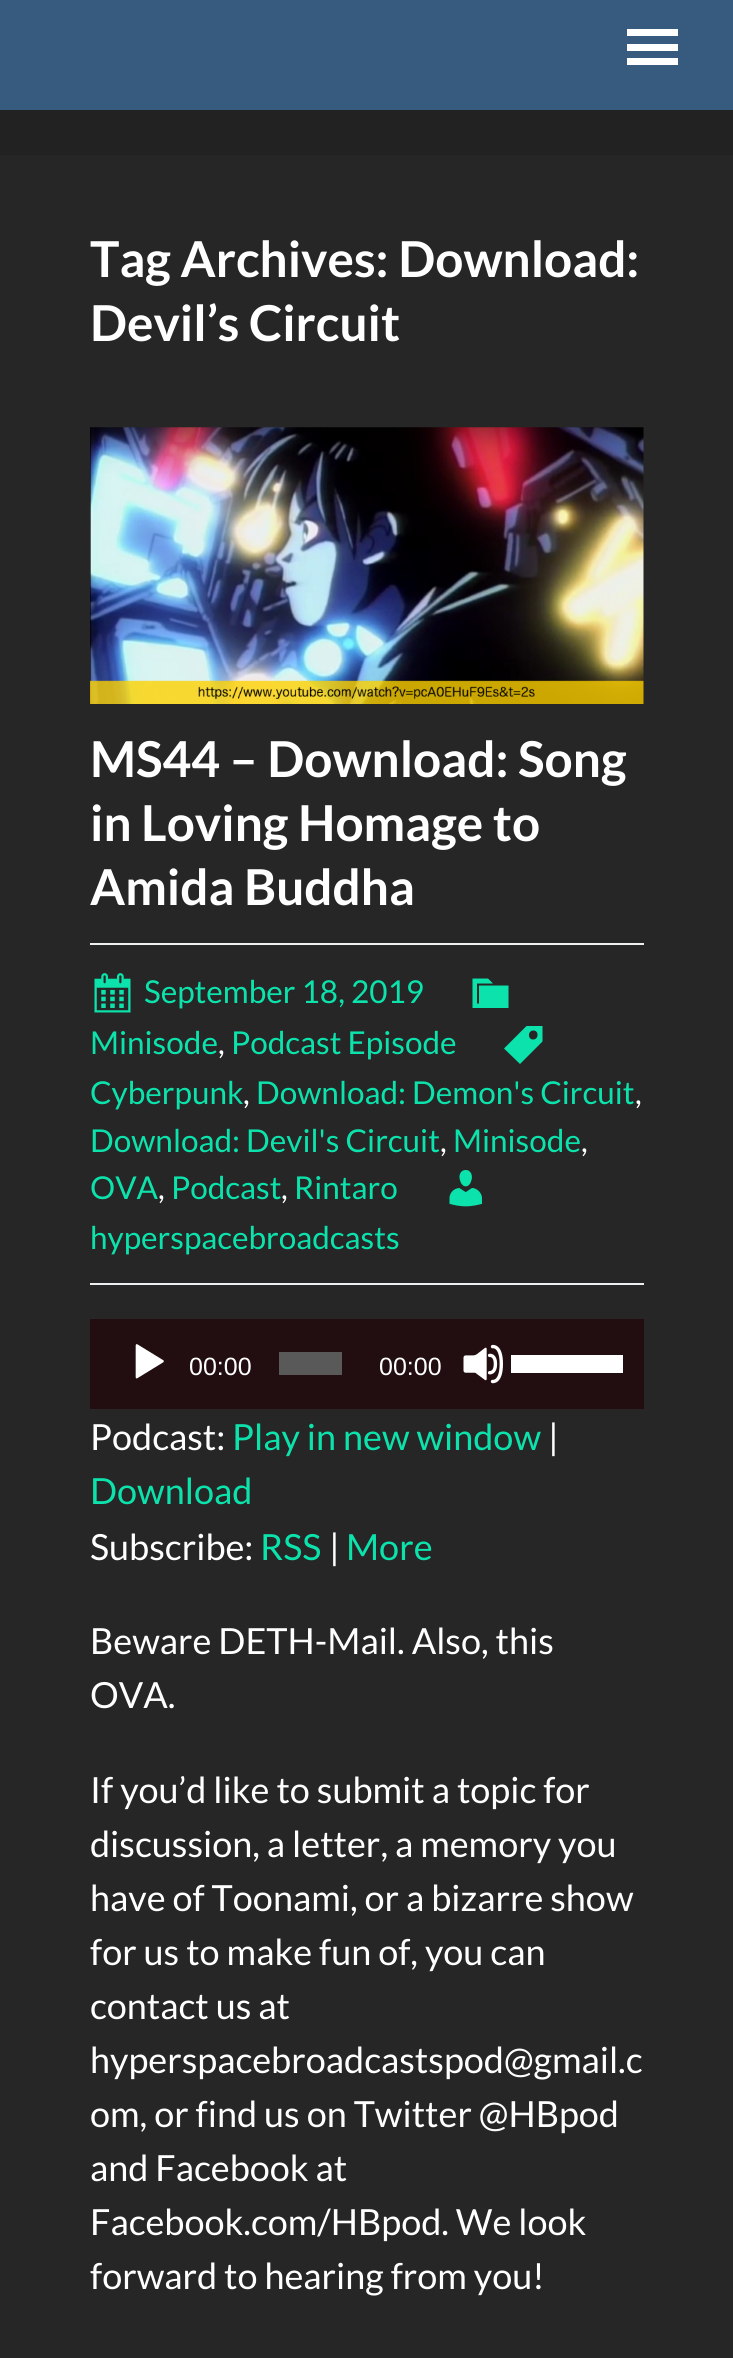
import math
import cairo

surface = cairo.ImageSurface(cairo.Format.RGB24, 733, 2358)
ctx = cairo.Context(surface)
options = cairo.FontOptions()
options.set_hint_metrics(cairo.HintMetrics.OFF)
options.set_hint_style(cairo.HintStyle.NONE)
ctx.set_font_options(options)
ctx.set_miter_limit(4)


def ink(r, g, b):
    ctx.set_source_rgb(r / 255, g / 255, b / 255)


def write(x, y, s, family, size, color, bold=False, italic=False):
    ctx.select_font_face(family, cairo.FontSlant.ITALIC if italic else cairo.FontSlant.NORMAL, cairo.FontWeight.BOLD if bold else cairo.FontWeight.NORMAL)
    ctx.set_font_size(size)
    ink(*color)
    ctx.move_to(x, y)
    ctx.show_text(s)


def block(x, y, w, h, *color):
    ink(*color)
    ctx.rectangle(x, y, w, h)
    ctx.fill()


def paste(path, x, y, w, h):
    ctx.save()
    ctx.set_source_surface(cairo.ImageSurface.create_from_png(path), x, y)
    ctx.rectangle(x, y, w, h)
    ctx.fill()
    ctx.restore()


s1 = dict(family="Lato", size=49.5, color=(255, 255, 255), bold=True)
s2 = dict(family="Lato", size=31.5, color=(12, 227, 172))
s3 = dict(family="Lato", size=31.5, color=(255, 255, 255))
s4 = dict(family="Liberation Sans", size=25, color=(255, 255, 255))
s5 = dict(family="Lato", size=36, color=(255, 255, 255))
s6 = dict(family="Lato", size=36, color=(12, 227, 172))

ink(34, 34, 34)
ctx.paint()
block(0, 0, 733, 110, 55, 90, 127)
ink(255, 255, 255)
ctx.new_path()
ctx.move_to(627, 65)
ctx.line_to(678, 65)
ctx.line_to(678, 58)
ctx.line_to(627, 58)
ctx.close_path()
ctx.move_to(627, 29)
ctx.line_to(627, 36)
ctx.line_to(678, 36)
ctx.line_to(678, 29)
ctx.close_path()
ctx.move_to(627, 51)
ctx.line_to(678, 51)
ctx.line_to(678, 44)
ctx.line_to(627, 44)
ctx.close_path()
ctx.fill()
block(0, 155, 733, 2203, 38, 38, 38)
write(90, 277, "Tag Archives: Download:", **s1)
write(90, 341, "Devil’s Circuit", **s1)
paste("pic1.png", 90, 427, 554, 277)
write(90, 777, "MS44 – Download: Song", **s1)
write(90, 841, "in Loving Homage to", **s1)
write(90, 905, "Amida Buddha", **s1)
block(90, 943, 554, 2, 236, 240, 241)
paste("pic2.png", 94, 973, 37, 40)
write(144, 1003, "September 18, 2019", **s2)
ctx.new_path()
ctx.move_to(479, 985.5)
ctx.line_to(508.5, 985.5)
ctx.line_to(508.5, 1008)
ctx.line_to(472.5, 1008)
ctx.line_to(472.5, 978.5)
ctx.line_to(488, 978.5)
ctx.line_to(493, 983.5)
ctx.line_to(477, 983.5)
ctx.line_to(477, 1003.5)
ctx.line_to(479, 1003.5)
ctx.close_path()
ctx.fill()
write(90, 1054, "Minisode", **s2)
write(218, 1054, ",", **s3)
write(231, 1054, "Podcast Episode", **s2)
ctx.new_path()
ctx.move_to(526.5, 1026)
ctx.line_to(542.5, 1026)
ctx.line_to(542.5, 1041.5)
ctx.line_to(520, 1064)
ctx.line_to(504, 1048.5)
ctx.close_path()
ctx.move_to(533, 1039.5)
ctx.curve_to(539, 1039.5, 539, 1030.5, 533.5, 1030.5)
ctx.curve_to(527.5, 1030.5, 527.5, 1039.5, 533, 1039.5)
ctx.close_path()
ctx.fill()
write(90, 1104, "Cyberpunk", **s2)
write(243, 1104, ",", **s3)
write(256, 1104, "Download: Demon's Circuit", **s2)
write(635, 1104, ",", **s3)
write(90, 1152, "Download: Devil's Circuit", **s2)
write(440, 1152, ",", **s3)
write(453, 1152, "Minisode", **s2)
write(581, 1152, ",", **s3)
write(90, 1199, "OVA", **s2)
write(158, 1199, ",", **s3)
write(171, 1199, "Podcast", **s2)
write(281, 1199, ",", **s3)
write(294, 1199, "Rintaro", **s2)
paste("pic3.png", 449, 1170, 33, 37)
write(90, 1249, "hyperspacebroadcasts", **s2)
block(90, 1283, 554, 2, 236, 240, 241)
block(90, 1319, 554, 90, 34, 14, 16)
paste("pic4.png", 135, 1344, 29, 35)
write(189, 1375, "00:00", **s4)
block(279, 1352, 63, 23, 89, 89, 89)
write(379, 1375, "00:00", **s4)
paste("pic5.png", 463, 1344, 40, 40)
block(511, 1355, 112, 18, 255, 255, 255)
write(90, 1450, "Podcast:", **s5)
write(232, 1450, "Play in new window", **s6)
write(548, 1450, "|", **s5)
write(90, 1504, "Download", **s6)
write(90, 1560, "Subscribe:", **s5)
write(260, 1560, "RSS", **s6)
write(329, 1560, "|", **s5)
write(346, 1560, "More", **s6)
write(90, 1654, "Beware DETH-Mail. Also, this", **s5)
write(90, 1708, "OVA.", **s5)
write(90, 1803, "If you’d like to submit a topic for", **s5)
write(90, 1857, "discussion, a letter, a memory you", **s5)
write(90, 1911, "have of Toonami, or a bizarre show", **s5)
write(90, 1965, "for us to make fun of, you can", **s5)
write(90, 2019, "contact us at", **s5)
write(90, 2073, "hyperspacebroadcastspod@gmail.c", **s5)
write(90, 2127, "om, or find us on Twitter @HBpod", **s5)
write(90, 2181, "and Facebook at", **s5)
write(90, 2235, "Facebook.com/HBpod. We look", **s5)
write(90, 2289, "forward to hearing from you!", **s5)
surface.write_to_png("screenshot.png")
